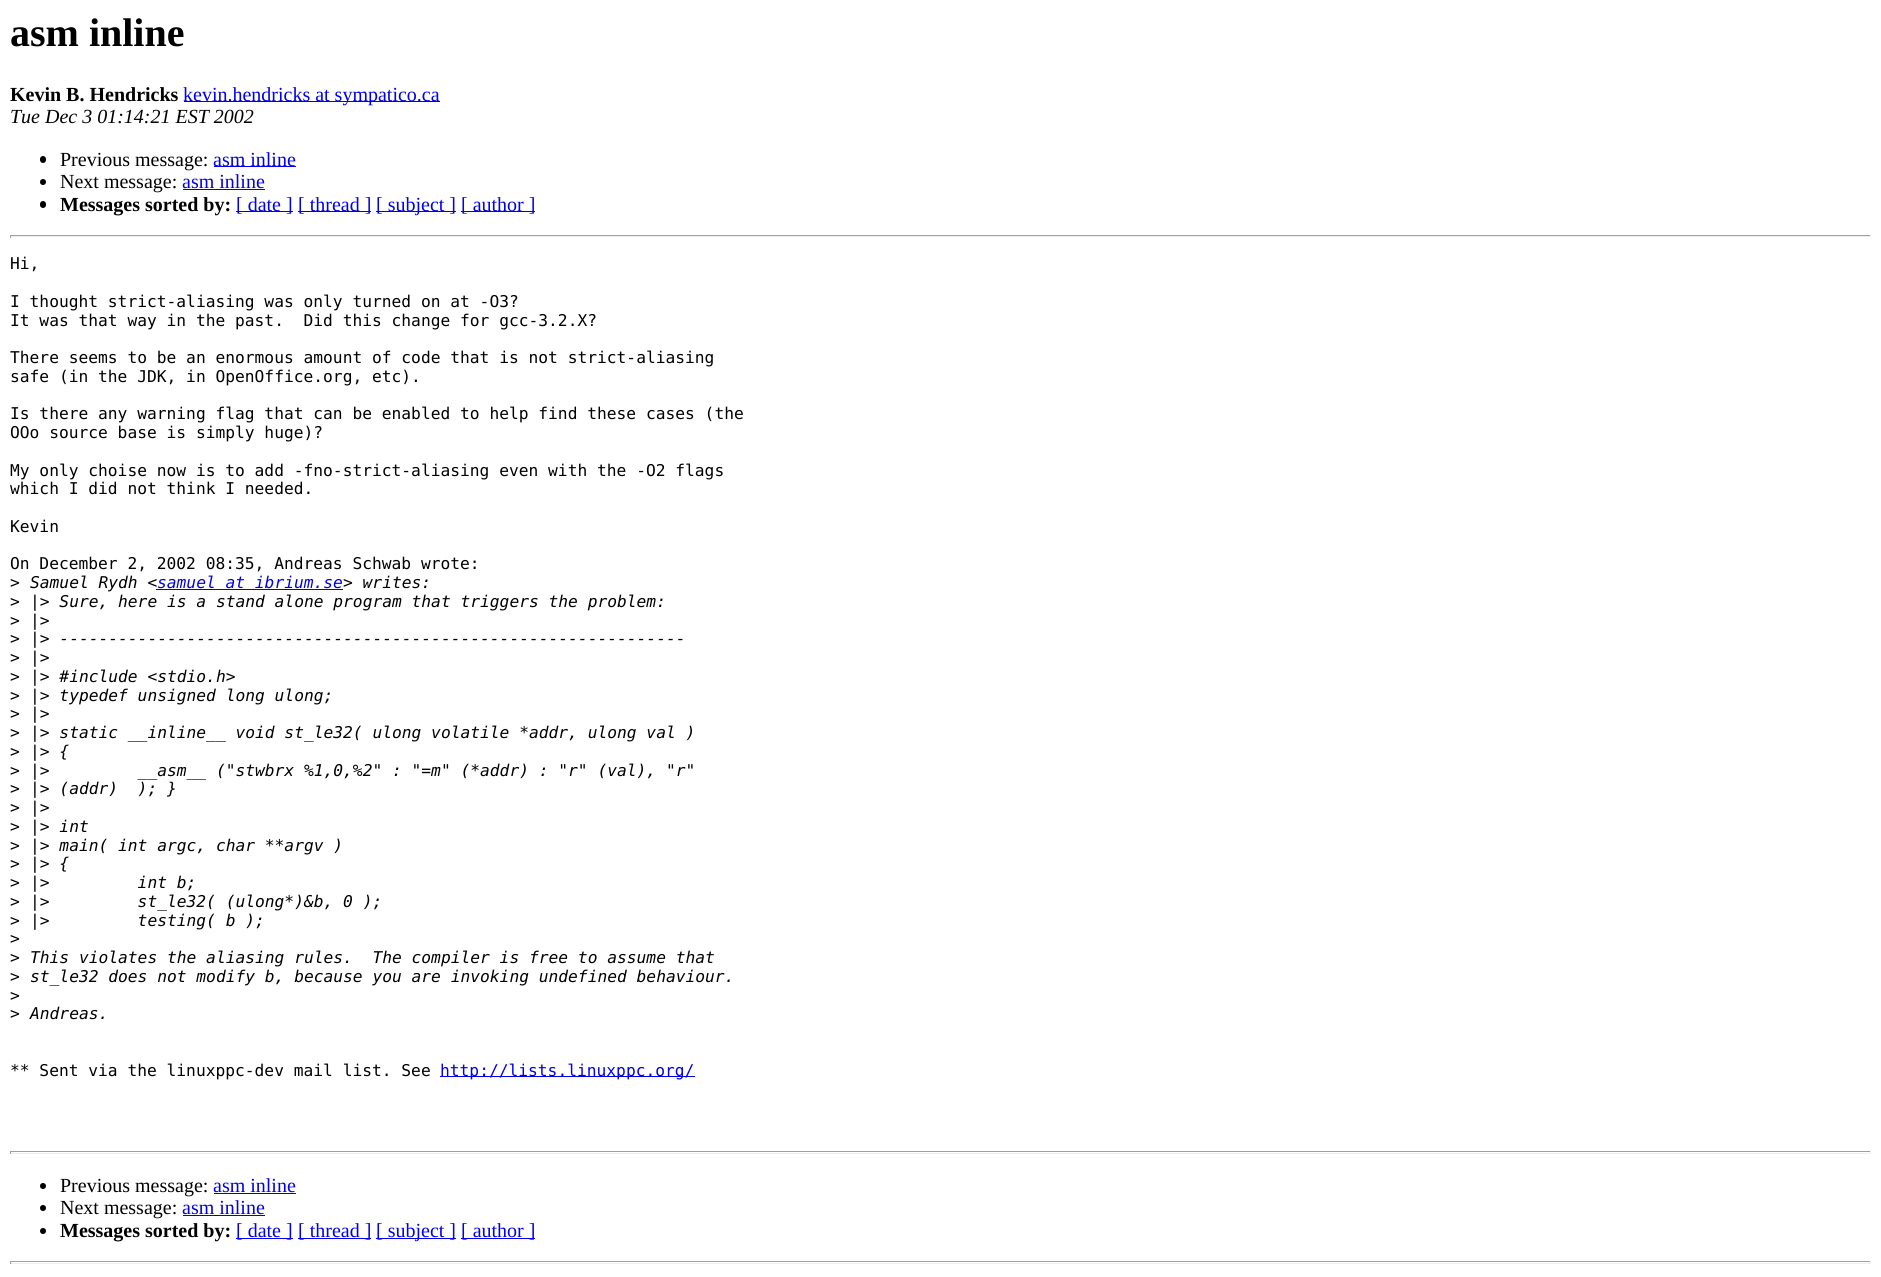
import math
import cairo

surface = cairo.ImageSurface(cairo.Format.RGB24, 1881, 1277)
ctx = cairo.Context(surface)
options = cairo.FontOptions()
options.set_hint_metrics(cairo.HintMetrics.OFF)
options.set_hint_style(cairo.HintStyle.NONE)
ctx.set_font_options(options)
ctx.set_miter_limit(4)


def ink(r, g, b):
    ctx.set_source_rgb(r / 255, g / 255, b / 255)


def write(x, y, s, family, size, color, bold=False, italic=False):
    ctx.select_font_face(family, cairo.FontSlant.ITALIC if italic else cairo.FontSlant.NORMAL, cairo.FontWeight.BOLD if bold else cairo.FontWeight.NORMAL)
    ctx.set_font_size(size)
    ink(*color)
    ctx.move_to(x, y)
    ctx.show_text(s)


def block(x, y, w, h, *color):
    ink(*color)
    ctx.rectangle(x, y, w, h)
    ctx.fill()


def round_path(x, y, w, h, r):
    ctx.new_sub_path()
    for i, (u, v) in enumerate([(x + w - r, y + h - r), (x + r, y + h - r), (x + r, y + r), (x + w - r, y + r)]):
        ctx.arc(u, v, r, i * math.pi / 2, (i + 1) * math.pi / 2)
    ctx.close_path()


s1 = dict(family="Liberation Serif", size=40, color=(0, 0, 0), bold=True)
s2 = dict(family="Liberation Serif", size=20, color=(0, 0, 0), bold=True)
s3 = dict(family="Liberation Serif", size=20, color=(0, 0, 238))
s4 = dict(family="Liberation Serif", size=20, color=(0, 0, 0), italic=True)
s5 = dict(family="Liberation Serif", size=20, color=(0, 0, 0))
s6 = dict(family="DejaVu Sans Mono", size=16.25, color=(0, 0, 0))
s7 = dict(family="DejaVu Sans Mono", size=16.25, color=(0, 0, 0), italic=True)
s8 = dict(family="DejaVu Sans Mono", size=16.25, color=(0, 0, 238), italic=True)
s9 = dict(family="DejaVu Sans Mono", size=16.25, color=(0, 0, 238))

ink(255, 255, 255)
ctx.paint()
write(10, 46, "asm inline", **s1)
write(10, 101, "Kevin B. Hendricks", **s2)
block(184, 101, 256, 1, 0, 0, 238)
write(183, 101, "kevin.hendricks at sympatico.ca", **s3)
write(10, 123, "Tue Dec 3 01:14:21 EST 2002", **s4)
round_path(40, 156, 6, 7, 3)
ctx.fill()
write(60, 166, "Previous message:", **s5)
block(214, 166, 82, 1, 0, 0, 238)
write(213, 166, "asm inline", **s3)
ink(0, 0, 0)
ctx.new_path()
ctx.arc(43, 182, 3, 0, 2 * math.pi)
ctx.fill()
write(60, 188, "Next message:", **s5)
write(182, 188, "asm inline", **s3)
block(183, 189, 82, 1, 0, 0, 238)
ink(0, 0, 0)
round_path(40, 201, 6, 7, 3)
ctx.fill()
write(60, 211, "Messages sorted by:", **s2)
block(236, 211, 57, 1, 0, 0, 238)
write(236, 211, "[ date ]", **s3)
block(298, 211, 73, 1, 0, 0, 238)
write(298, 211, "[ thread ]", **s3)
block(376, 211, 80, 1, 0, 0, 238)
write(376, 211, "[ subject ]", **s3)
block(461, 211, 74, 1, 0, 0, 238)
write(461, 211, "[ author ]", **s3)
block(10, 235, 1861, 1, 159, 159, 159)
block(1870, 235, 1, 3, 238, 238, 238)
block(10, 236, 1861, 1, 238, 238, 238)
block(10, 235, 1, 3, 159, 159, 159)
write(10, 269, "Hi,", **s6)
write(10, 307, "I thought strict-aliasing was only turned on at -O3?", **s6)
write(10, 326, "It was that way in the past.  Did this change for gcc-3.2.X?", **s6)
write(10, 363, "There seems to be an enormous amount of code that is not strict-aliasing", **s6)
write(10, 382, "safe (in the JDK, in OpenOffice.org, etc).", **s6)
write(10, 419, "Is there any warning flag that can be enabled to help find these cases (the", **s6)
write(10, 438, "OOo source base is simply huge)?", **s6)
write(10, 476, "My only choise now is to add -fno-strict-aliasing even with the -O2 flags", **s6)
write(10, 494, "which I did not think I needed.", **s6)
write(10, 532, "Kevin", **s6)
write(10, 569, "On December 2, 2002 08:35, Andreas Schwab wrote:", **s6)
write(10, 588, ">", **s6)
write(30, 588, "Samuel Rydh <", **s7)
block(156, 589, 187, 1, 0, 0, 238)
write(157, 588, "samuel at ibrium.se", **s8)
write(343, 588, "> writes:", **s7)
write(10, 607, ">", **s6)
write(30, 607, "|> Sure, here is a stand alone program that triggers the problem:", **s7)
write(10, 626, ">", **s6)
write(30, 626, "|>", **s7)
write(10, 644, ">", **s6)
write(30, 644, "|> ----------------------------------------------------------------", **s7)
write(10, 663, ">", **s6)
write(30, 663, "|>", **s7)
write(10, 682, ">", **s6)
write(30, 682, "|> #include <stdio.h>", **s7)
write(10, 701, ">", **s6)
write(30, 701, "|> typedef unsigned long ulong;", **s7)
write(10, 719, ">", **s6)
write(30, 719, "|>", **s7)
write(10, 738, ">", **s6)
write(30, 738, "|> static __inline__ void st_le32( ulong volatile *addr, ulong val )", **s7)
write(10, 757, ">", **s6)
write(30, 757, "|> {", **s7)
write(10, 776, ">", **s6)
write(30, 776, "|>         __asm__ (\"stwbrx %1,0,%2\" : \"=m\" (*addr) : \"r\" (val), \"r\"", **s7)
write(10, 794, ">", **s6)
write(30, 794, "|> (addr)  ); }", **s7)
write(10, 813, ">", **s6)
write(30, 813, "|>", **s7)
write(10, 832, ">", **s6)
write(30, 832, "|> int", **s7)
write(10, 851, ">", **s6)
write(30, 851, "|> main( int argc, char **argv )", **s7)
write(10, 869, ">", **s6)
write(30, 869, "|> {", **s7)
write(10, 888, ">", **s6)
write(30, 888, "|>         int b;", **s7)
write(10, 907, ">", **s6)
write(30, 907, "|>         st_le32( (ulong*)&b, 0 );", **s7)
write(10, 926, ">", **s6)
write(30, 926, "|>         testing( b );", **s7)
write(10, 944, ">", **s6)
write(10, 963, ">", **s6)
write(30, 963, "This violates the aliasing rules.  The compiler is free to assume that", **s7)
write(10, 982, ">", **s6)
write(30, 982, "st_le32 does not modify b, because you are invoking undefined behaviour.", **s7)
write(10, 1001, ">", **s6)
write(10, 1019, ">", **s6)
write(30, 1019, "Andreas.", **s7)
write(10, 1076, "** Sent via the linuxppc-dev mail list. See", **s6)
block(440, 1076, 255, 1, 0, 0, 238)
write(440, 1076, "http://lists.linuxppc.org/", **s9)
block(10, 1151, 1861, 1, 159, 159, 159)
block(1870, 1151, 1, 3, 238, 238, 238)
block(10, 1153, 1861, 1, 238, 238, 238)
block(10, 1151, 1, 3, 159, 159, 159)
ink(0, 0, 0)
ctx.new_path()
ctx.arc(43, 1186, 3, 0, 2 * math.pi)
ctx.fill()
write(60, 1192, "Previous message:", **s5)
write(213, 1192, "asm inline", **s3)
block(214, 1193, 82, 1, 0, 0, 238)
ink(0, 0, 0)
ctx.new_path()
ctx.arc(43, 1208, 3, 0, 2 * math.pi)
ctx.fill()
write(60, 1214, "Next message:", **s5)
write(182, 1214, "asm inline", **s3)
block(183, 1215, 82, 1, 0, 0, 238)
ink(0, 0, 0)
ctx.new_path()
ctx.arc(43, 1231, 3, 0, 2 * math.pi)
ctx.fill()
write(60, 1237, "Messages sorted by:", **s2)
block(236, 1238, 57, 1, 0, 0, 238)
write(236, 1237, "[ date ]", **s3)
block(298, 1238, 73, 1, 0, 0, 238)
write(298, 1237, "[ thread ]", **s3)
block(376, 1238, 80, 1, 0, 0, 238)
write(376, 1237, "[ subject ]", **s3)
block(461, 1238, 74, 1, 0, 0, 238)
write(461, 1237, "[ author ]", **s3)
block(10, 1261, 1861, 1, 159, 159, 159)
block(1870, 1261, 1, 3, 238, 238, 238)
block(10, 1263, 1861, 1, 238, 238, 238)
block(10, 1261, 1, 3, 159, 159, 159)
surface.write_to_png("screenshot.png")
